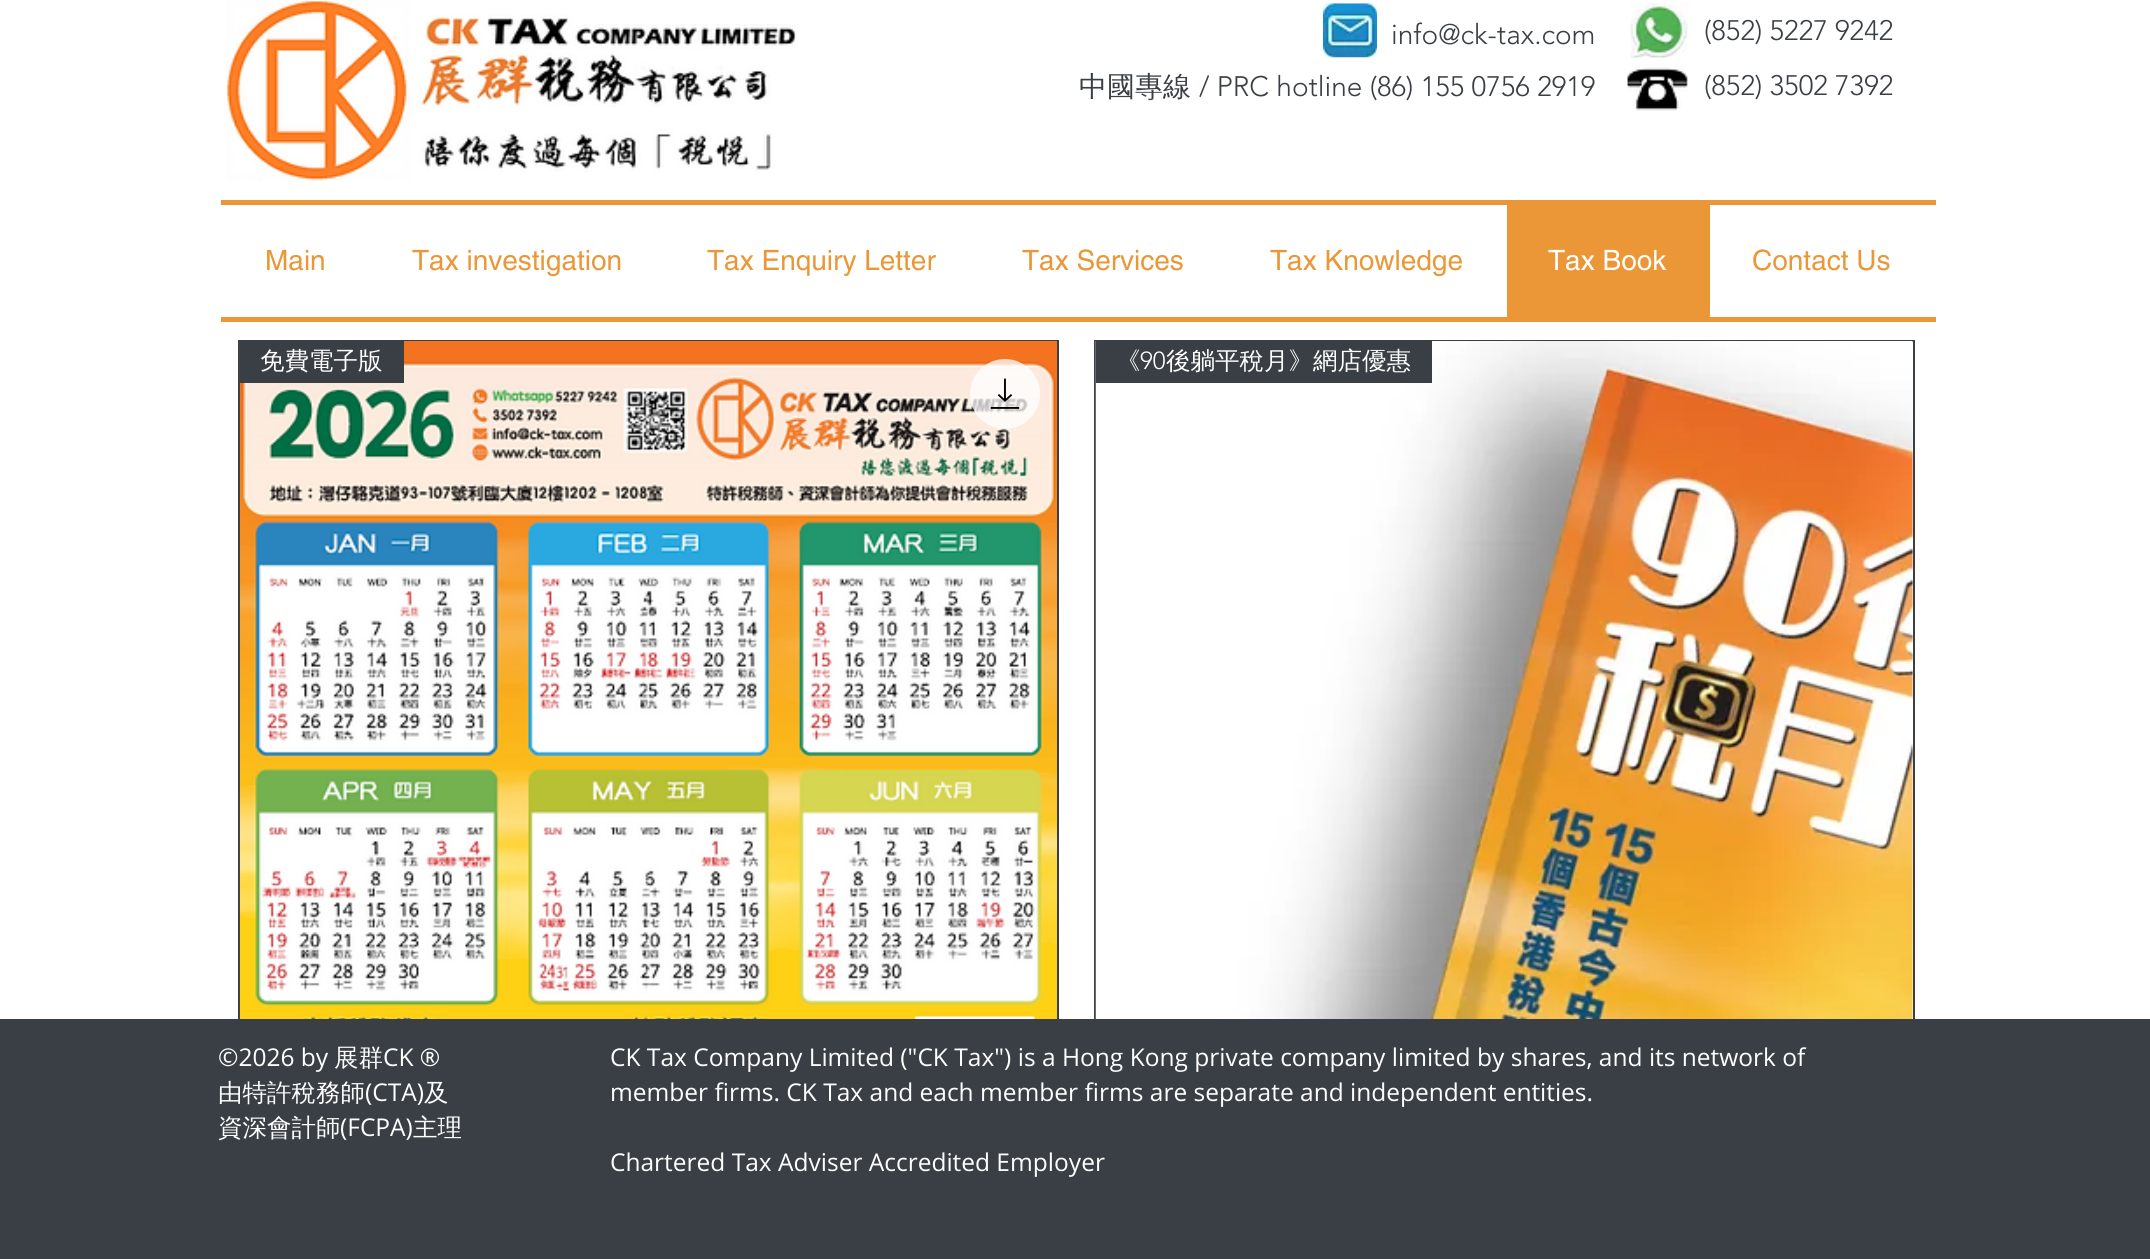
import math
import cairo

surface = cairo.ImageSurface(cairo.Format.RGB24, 2150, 1259)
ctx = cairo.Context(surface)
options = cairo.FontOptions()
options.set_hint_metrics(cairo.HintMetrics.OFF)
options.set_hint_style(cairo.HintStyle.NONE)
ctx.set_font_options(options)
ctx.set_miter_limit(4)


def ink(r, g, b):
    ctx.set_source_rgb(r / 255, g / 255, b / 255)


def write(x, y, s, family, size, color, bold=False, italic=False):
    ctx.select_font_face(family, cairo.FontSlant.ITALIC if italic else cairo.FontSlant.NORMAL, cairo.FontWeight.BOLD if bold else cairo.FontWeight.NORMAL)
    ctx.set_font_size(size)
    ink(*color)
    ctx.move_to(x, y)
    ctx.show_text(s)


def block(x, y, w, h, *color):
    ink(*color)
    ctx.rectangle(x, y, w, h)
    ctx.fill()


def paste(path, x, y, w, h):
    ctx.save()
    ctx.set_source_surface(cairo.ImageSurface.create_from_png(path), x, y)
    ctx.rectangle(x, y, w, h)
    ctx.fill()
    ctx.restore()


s1 = dict(family="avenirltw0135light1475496 Light", size=28, color=(57, 63, 68))
s2 = dict(family="WenQuanYi Zen Hei Medium", size=28, color=(57, 63, 68))
s3 = dict(family="helvetica", size=28, color=(235, 151, 56))
s4 = dict(family="helvetica", size=28, color=(255, 255, 255))
s5 = dict(family="WenQuanYi Zen Hei Medium", size=24.5, color=(255, 255, 255))
s6 = dict(family="avenirltw0135light1475496 Light", size=24.5, color=(255, 255, 255))
s7 = dict(family="Open Sans", size=24.5, color=(255, 255, 255))

ink(255, 255, 255)
ctx.paint()
paste("pic1.png", 226, 0, 572, 181)
paste("pic2.png", 1323, 3, 55, 55)
write(1391, 44, "info@ck-tax.com", **s1)
paste("pic3.png", 1630, 2, 58, 56)
write(1704, 40, "(852) 5227 9242", **s1)
write(1079, 96, "中國專線", **s2)
write(1199, 96, "/ PRC hotline (86) 155 0756 2919", **s1)
paste("pic4.png", 1627, 57, 61, 54)
write(1704, 95, "(852) 3502 7392", **s1)
block(221, 200, 1715, 5, 235, 151, 56)
block(221, 317, 1715, 5, 235, 151, 56)
write(265, 270, "Main", **s3)
write(412, 270, "Tax investigation", **s3)
write(707, 270, "Tax Enquiry Letter", **s3)
write(1022, 270, "Tax Services", **s3)
write(1270, 270, "Tax Knowledge", **s3)
block(1507, 205, 203, 112, 235, 151, 56)
write(1548, 270, "Tax Book", **s4)
write(1752, 270, "Contact Us", **s3)
ctx.rectangle(239, 341, 819, 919)
ink(57, 63, 68)
ctx.stroke()
paste("pic5.png", 239, 341, 818, 678)
ctx.set_source_rgba(1, 1, 1, 0.75)
ctx.arc(1005, 394, 35, 0, 2 * math.pi)
ctx.fill()
paste("pic6.png", 990, 378, 30, 31)
block(240, 341, 164, 42, 57, 63, 68)
write(260, 369, "免費電子版", **s5)
ctx.rectangle(1095, 341, 819, 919)
ink(57, 63, 68)
ctx.stroke()
paste("pic7.png", 1095, 341, 818, 678)
block(1096, 341, 336, 42, 57, 63, 68)
write(1116, 369, "《", **s5)
write(1140, 369, "90", **s6)
write(1166, 369, "後躺平稅月》網店優惠", **s5)
block(0, 1019, 2150, 240, 57, 63, 68)
write(218, 1066, "©2026 by", **s7)
write(334, 1066, "展群", **s5)
write(383, 1066, "CK ®", **s7)
write(218, 1101, "由特許稅務師", **s5)
write(365, 1101, "(CTA)", **s7)
write(424, 1101, "及", **s5)
write(218, 1136, "資深會計師", **s5)
write(340, 1136, "(FCPA)", **s7)
write(413, 1136, "主理", **s5)
write(610, 1066, "CK Tax Company Limited (\"CK Tax\") is a Hong Kong private company limited by shares, and its network of", **s7)
write(610, 1101, "member firms. CK Tax and each member firms are separate and independent entities.", **s7)
write(610, 1171, "Chartered Tax Adviser Accredited Employer", **s7)
surface.write_to_png("screenshot.png")
